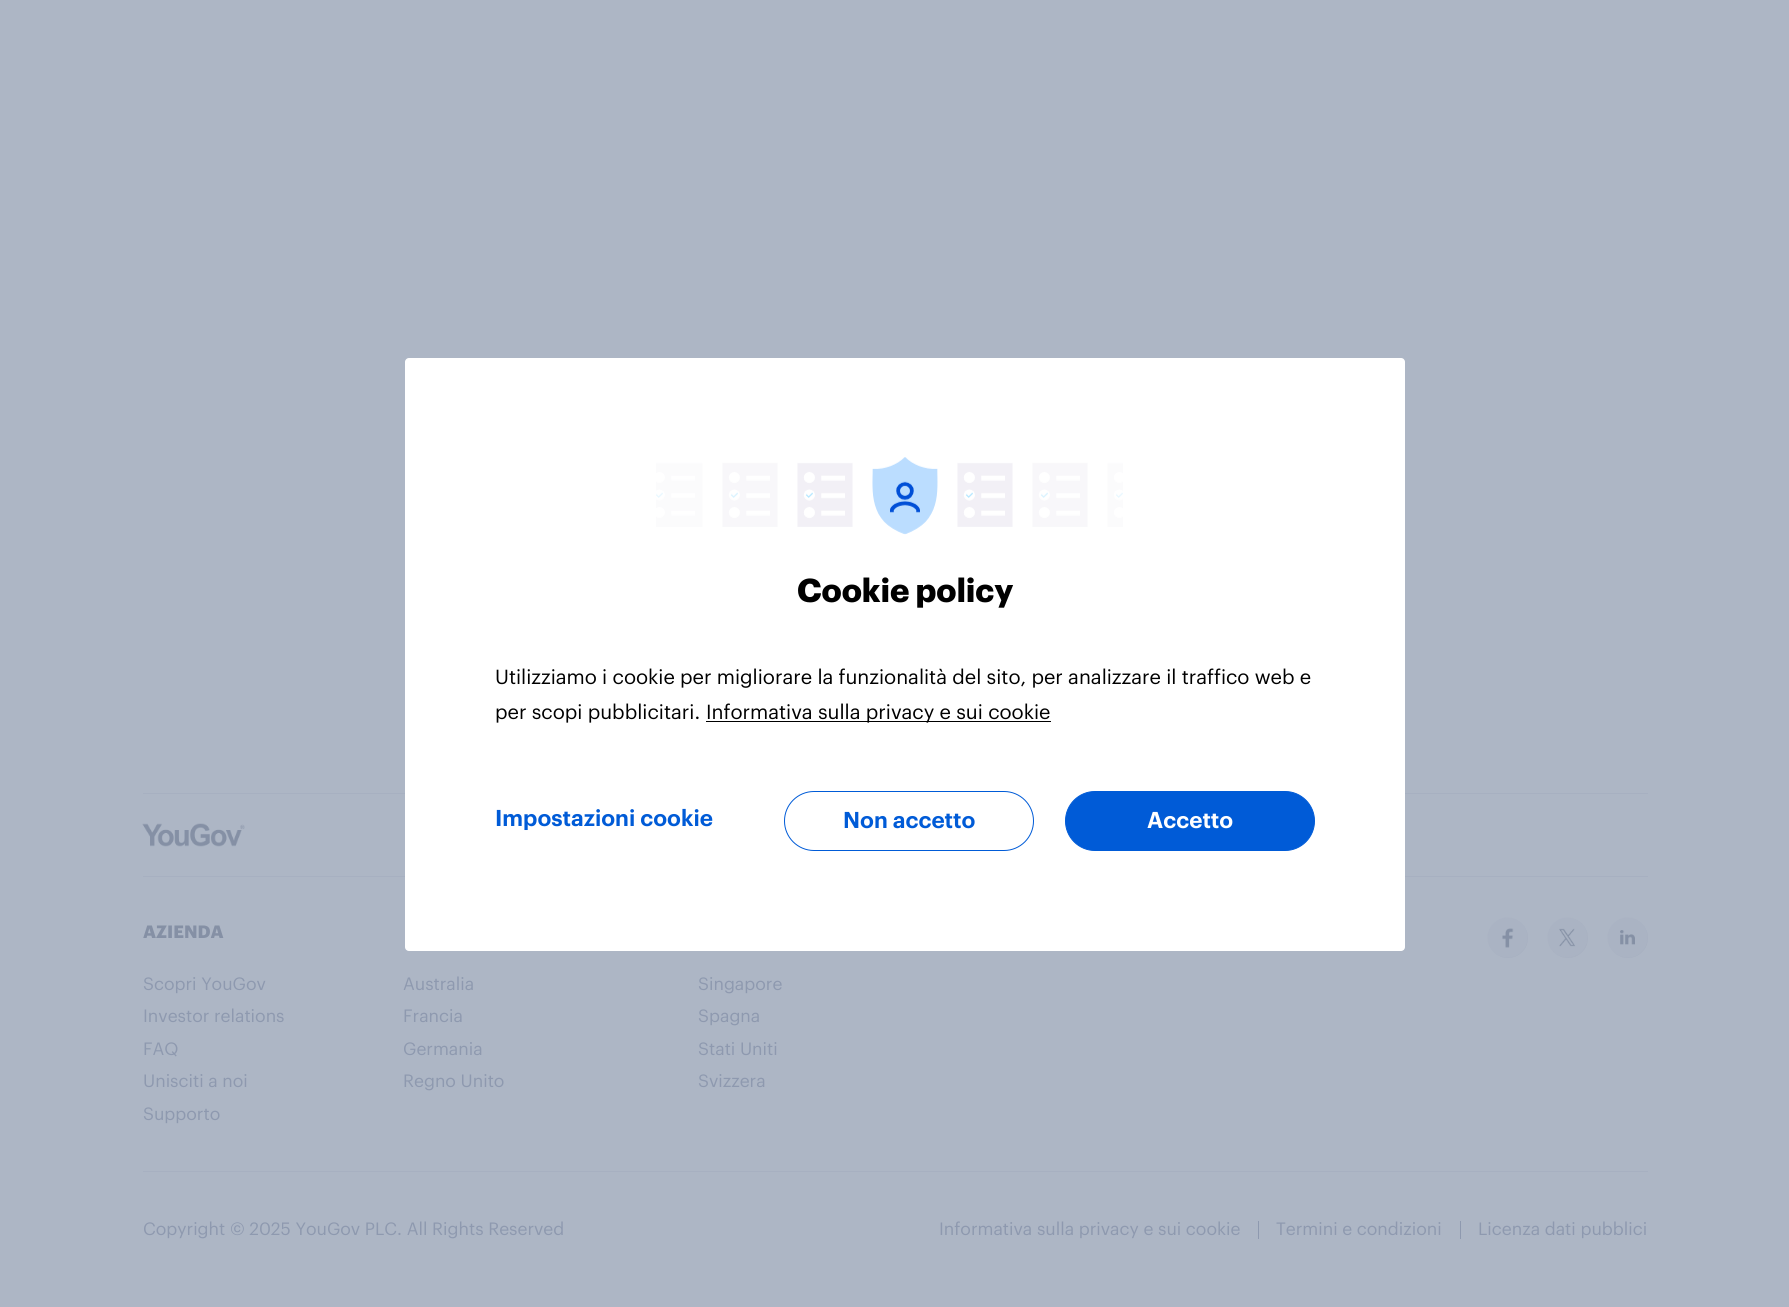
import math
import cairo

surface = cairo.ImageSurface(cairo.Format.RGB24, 1789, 1307)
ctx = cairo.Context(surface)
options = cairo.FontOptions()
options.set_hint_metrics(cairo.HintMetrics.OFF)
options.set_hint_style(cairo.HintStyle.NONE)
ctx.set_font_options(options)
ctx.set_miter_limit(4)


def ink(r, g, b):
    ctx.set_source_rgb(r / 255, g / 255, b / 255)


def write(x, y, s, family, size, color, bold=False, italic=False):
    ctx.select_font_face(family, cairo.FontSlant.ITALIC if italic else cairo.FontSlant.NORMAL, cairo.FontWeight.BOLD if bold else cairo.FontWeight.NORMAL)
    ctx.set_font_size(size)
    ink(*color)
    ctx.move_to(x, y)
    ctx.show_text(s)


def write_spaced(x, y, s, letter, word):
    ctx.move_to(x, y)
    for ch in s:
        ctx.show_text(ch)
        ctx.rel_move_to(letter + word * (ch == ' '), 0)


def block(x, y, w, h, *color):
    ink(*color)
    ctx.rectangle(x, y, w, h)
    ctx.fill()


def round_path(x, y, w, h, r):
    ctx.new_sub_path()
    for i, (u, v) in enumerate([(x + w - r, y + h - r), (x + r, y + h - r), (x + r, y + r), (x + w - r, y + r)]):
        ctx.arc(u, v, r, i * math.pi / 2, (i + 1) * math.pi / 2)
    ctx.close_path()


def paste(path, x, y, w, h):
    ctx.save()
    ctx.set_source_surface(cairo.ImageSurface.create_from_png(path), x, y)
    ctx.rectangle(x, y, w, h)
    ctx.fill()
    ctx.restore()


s1 = dict(family="Graphik", size=20, color=(0, 0, 0))
s2 = dict(family="Graphik SemiBold", size=22.5, color=(0, 91, 215))
s3 = dict(family="Graphik SemiBold", size=22.5, color=(255, 255, 255))
s4 = dict(family="Graphik", size=17.5, color=(133, 144, 165), bold=True)
s5 = dict(family="Graphik", size=17.5, color=(142, 153, 175))

ink(173, 182, 197)
ctx.paint()
block(143, 793, 1505, 1, 167, 176, 193)
block(143, 876, 1505, 1, 167, 176, 193)
ink(255, 255, 255)
round_path(405, 358, 1000, 593, 4)
ctx.fill()
paste("pic1.png", 656, 457, 467, 78)
ctx.select_font_face("Graphik", cairo.FontSlant.NORMAL, cairo.FontWeight.BOLD)
ctx.set_font_size(32.5)
ink(0, 0, 0)
write_spaced(797, 602, "Cookie policy", -0.1, 0)
write(495, 684, "Utilizziamo i cookie per migliorare la funzionalità del sito, per analizzare il traffico web e", **s1)
write(495, 719, "per scopi pubblicitari.", **s1)
block(706, 721, 345, 1, 0, 0, 0)
write(706, 719, "Informativa sulla privacy e sui cookie", **s1)
write(495, 826, "Impostazioni cookie", **s2)
round_path(784.5, 791.5, 249, 59, 29.5)
ctx.set_line_width(1)
ctx.stroke()
write(843, 828, "Non accetto", **s2)
round_path(1065.5, 791.5, 249, 59, 29.5)
ctx.fill_preserve()
ctx.stroke()
write(1147, 828, "Accetto", **s3)
paste("pic2.png", 142, 823, 103, 24)
write(143, 938, "AZIENDA", **s4)
write(143, 990, "Scopri YouGov", **s5)
write(143, 1022, "Investor relations", **s5)
write(143, 1055, "FAQ", **s5)
write(143, 1087, "Unisciti a noi", **s5)
write(143, 1120, "Supporto", **s5)
write(403, 990, "Australia", **s5)
write(698, 990, "Singapore", **s5)
write(403, 1022, "Francia", **s5)
write(698, 1022, "Spagna", **s5)
write(403, 1055, "Germania", **s5)
write(698, 1055, "Stati Uniti", **s5)
write(403, 1087, "Regno Unito", **s5)
write(698, 1087, "Svizzera", **s5)
ink(167, 176, 193)
ctx.new_path()
ctx.arc(1508, 938, 20, 0, 2 * math.pi)
ctx.fill()
paste("pic3.png", 1487, 917, 41, 41)
ctx.arc(1568, 938, 20, 0, 2 * math.pi)
ctx.fill()
paste("pic4.png", 1547, 917, 41, 41)
ctx.arc(1628, 938, 20, 0, 2 * math.pi)
ctx.fill()
paste("pic5.png", 1607, 917, 41, 41)
block(143, 1171, 1505, 1, 167, 176, 193)
write(143, 1235, "Copyright © 2025 YouGov PLC. All Rights Reserved", **s5)
write(939, 1235, "Informativa sulla privacy e sui cookie", **s5)
block(1258, 1221, 1, 18, 142, 153, 175)
write(1276, 1235, "Termini e condizioni", **s5)
block(1460, 1221, 1, 18, 142, 153, 175)
write(1478, 1235, "Licenza dati pubblici", **s5)
surface.write_to_png("screenshot.png")
